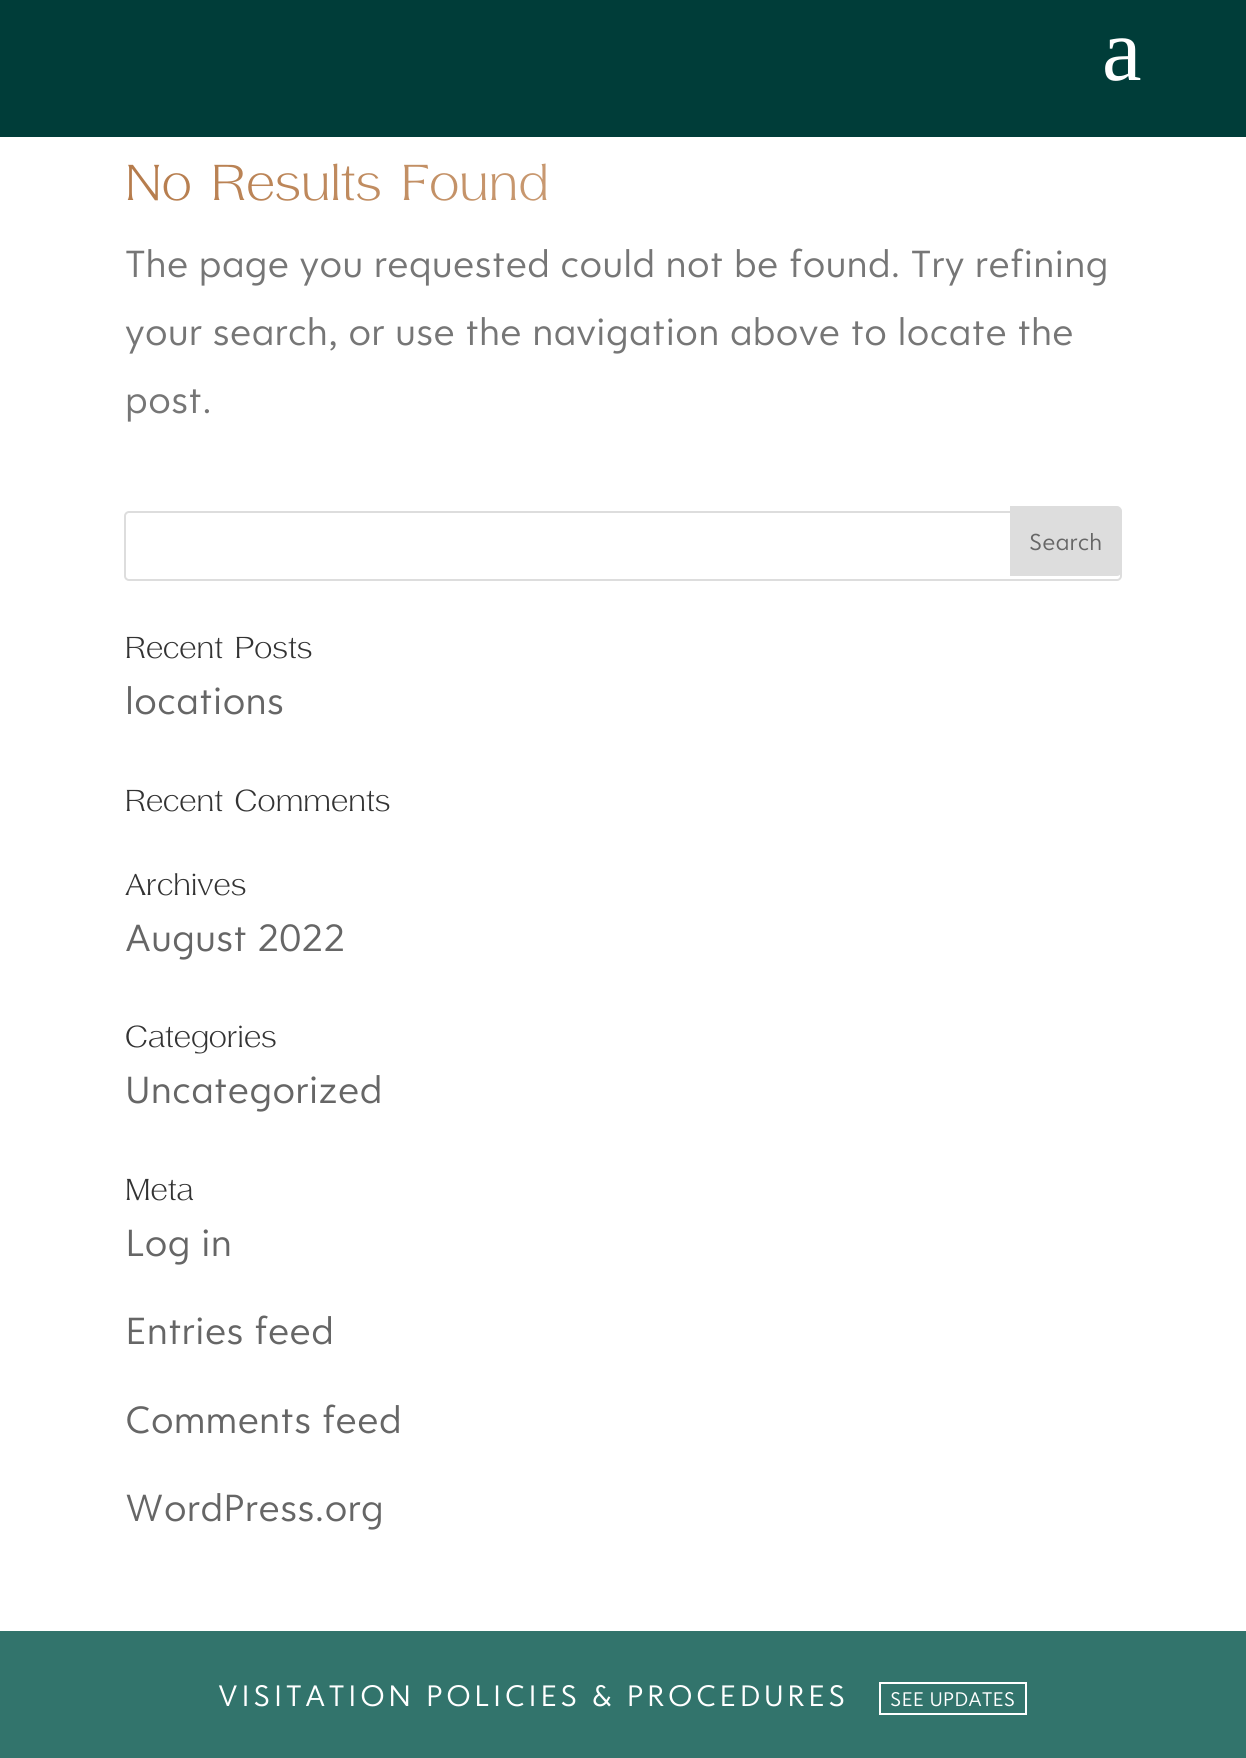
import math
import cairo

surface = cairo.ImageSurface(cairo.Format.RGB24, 1246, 1758)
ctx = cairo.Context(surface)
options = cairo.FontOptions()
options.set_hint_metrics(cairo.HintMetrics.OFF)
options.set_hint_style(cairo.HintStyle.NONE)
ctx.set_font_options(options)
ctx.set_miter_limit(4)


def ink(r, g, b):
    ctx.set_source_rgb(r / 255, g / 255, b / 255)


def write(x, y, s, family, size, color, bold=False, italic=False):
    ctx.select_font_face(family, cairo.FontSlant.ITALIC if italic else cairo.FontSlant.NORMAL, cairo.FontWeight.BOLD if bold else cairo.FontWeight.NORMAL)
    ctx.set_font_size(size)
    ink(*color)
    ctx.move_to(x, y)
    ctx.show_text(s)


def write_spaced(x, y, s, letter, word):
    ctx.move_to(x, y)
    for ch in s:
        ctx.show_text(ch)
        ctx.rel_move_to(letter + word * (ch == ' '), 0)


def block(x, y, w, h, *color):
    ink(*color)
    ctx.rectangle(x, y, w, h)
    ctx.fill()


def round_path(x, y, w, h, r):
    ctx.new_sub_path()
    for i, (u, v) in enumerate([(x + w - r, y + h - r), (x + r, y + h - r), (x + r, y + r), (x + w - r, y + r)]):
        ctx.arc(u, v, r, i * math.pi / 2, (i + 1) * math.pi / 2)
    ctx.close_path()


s1 = dict(family="Liberation Serif", size=89, color=(255, 255, 255))
s2 = dict(family="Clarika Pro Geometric", size=40.25, color=(118, 118, 118))
s3 = dict(family="Clarika Pro Geometric", size=24.5, color=(102, 102, 102))
s4 = dict(family="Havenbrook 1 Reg", size=31.5, color=(51, 51, 51))
s5 = dict(family="Clarika Pro Geometric", size=40.25, color=(102, 102, 102))
s6 = dict(family="Clarika Pro Geometric", size=21, color=(255, 255, 255))

ink(255, 255, 255)
ctx.paint()
block(0, 0, 1246, 137, 0, 61, 57)
write(1102, 80, "a", **s1)
ctx.select_font_face("Havenbrook 1 Reg")
ctx.set_font_size(52.5)
gradient = cairo.LinearGradient(1100, 312, 146, 73)
gradient.add_color_stop_rgba(0, 0.89, 0.757, 0.639, 1)
gradient.add_color_stop_rgba(1, 0.71, 0.482, 0.294, 1)
ctx.set_source(gradient)
ctx.move_to(125, 200)
ctx.show_text("No Results Found")
write(125, 277, "The page you requested could not be found. Try refining", **s2)
write(125, 345, "your search, or use the navigation above to locate the", **s2)
write(125, 413, "post.", **s2)
round_path(125, 512, 996, 68, 4)
ink(221, 221, 221)
ctx.stroke()
ctx.new_path()
ctx.move_to(1011, 507)
ctx.line_to(1117, 507)
ctx.curve_to(1119, 507, 1121, 509, 1121, 511)
ctx.line_to(1121, 571)
ctx.curve_to(1121, 573, 1119, 575, 1117, 575)
ctx.line_to(1011, 575)
ctx.close_path()
ctx.fill_preserve()
ctx.stroke()
write(1029, 550, "Search", **s3)
write(125, 658, "Recent Posts", **s4)
write(125, 714, "locations", **s5)
write(125, 811, "Recent Comments", **s4)
write(125, 895, "Archives", **s4)
write(125, 951, "August 2022", **s5)
write(125, 1047, "Categories", **s4)
write(125, 1103, "Uncategorized", **s5)
write(125, 1200, "Meta", **s4)
write(125, 1256, "Log in", **s5)
write(125, 1344, "Entries feed", **s5)
write(125, 1433, "Comments feed", **s5)
write(125, 1521, "WordPress.org", **s5)
block(0, 1631, 1246, 127, 50, 116, 108)
ctx.set_font_size(31.5)
ink(255, 255, 255)
write_spaced(218, 1706, "VISITATION POLICIES & PROCEDURES", 3.15, 0)
ctx.rectangle(880, 1683, 146, 31)
ctx.stroke()
write(890, 1706, "SEE UPDATES", **s6)
surface.write_to_png("screenshot.png")
